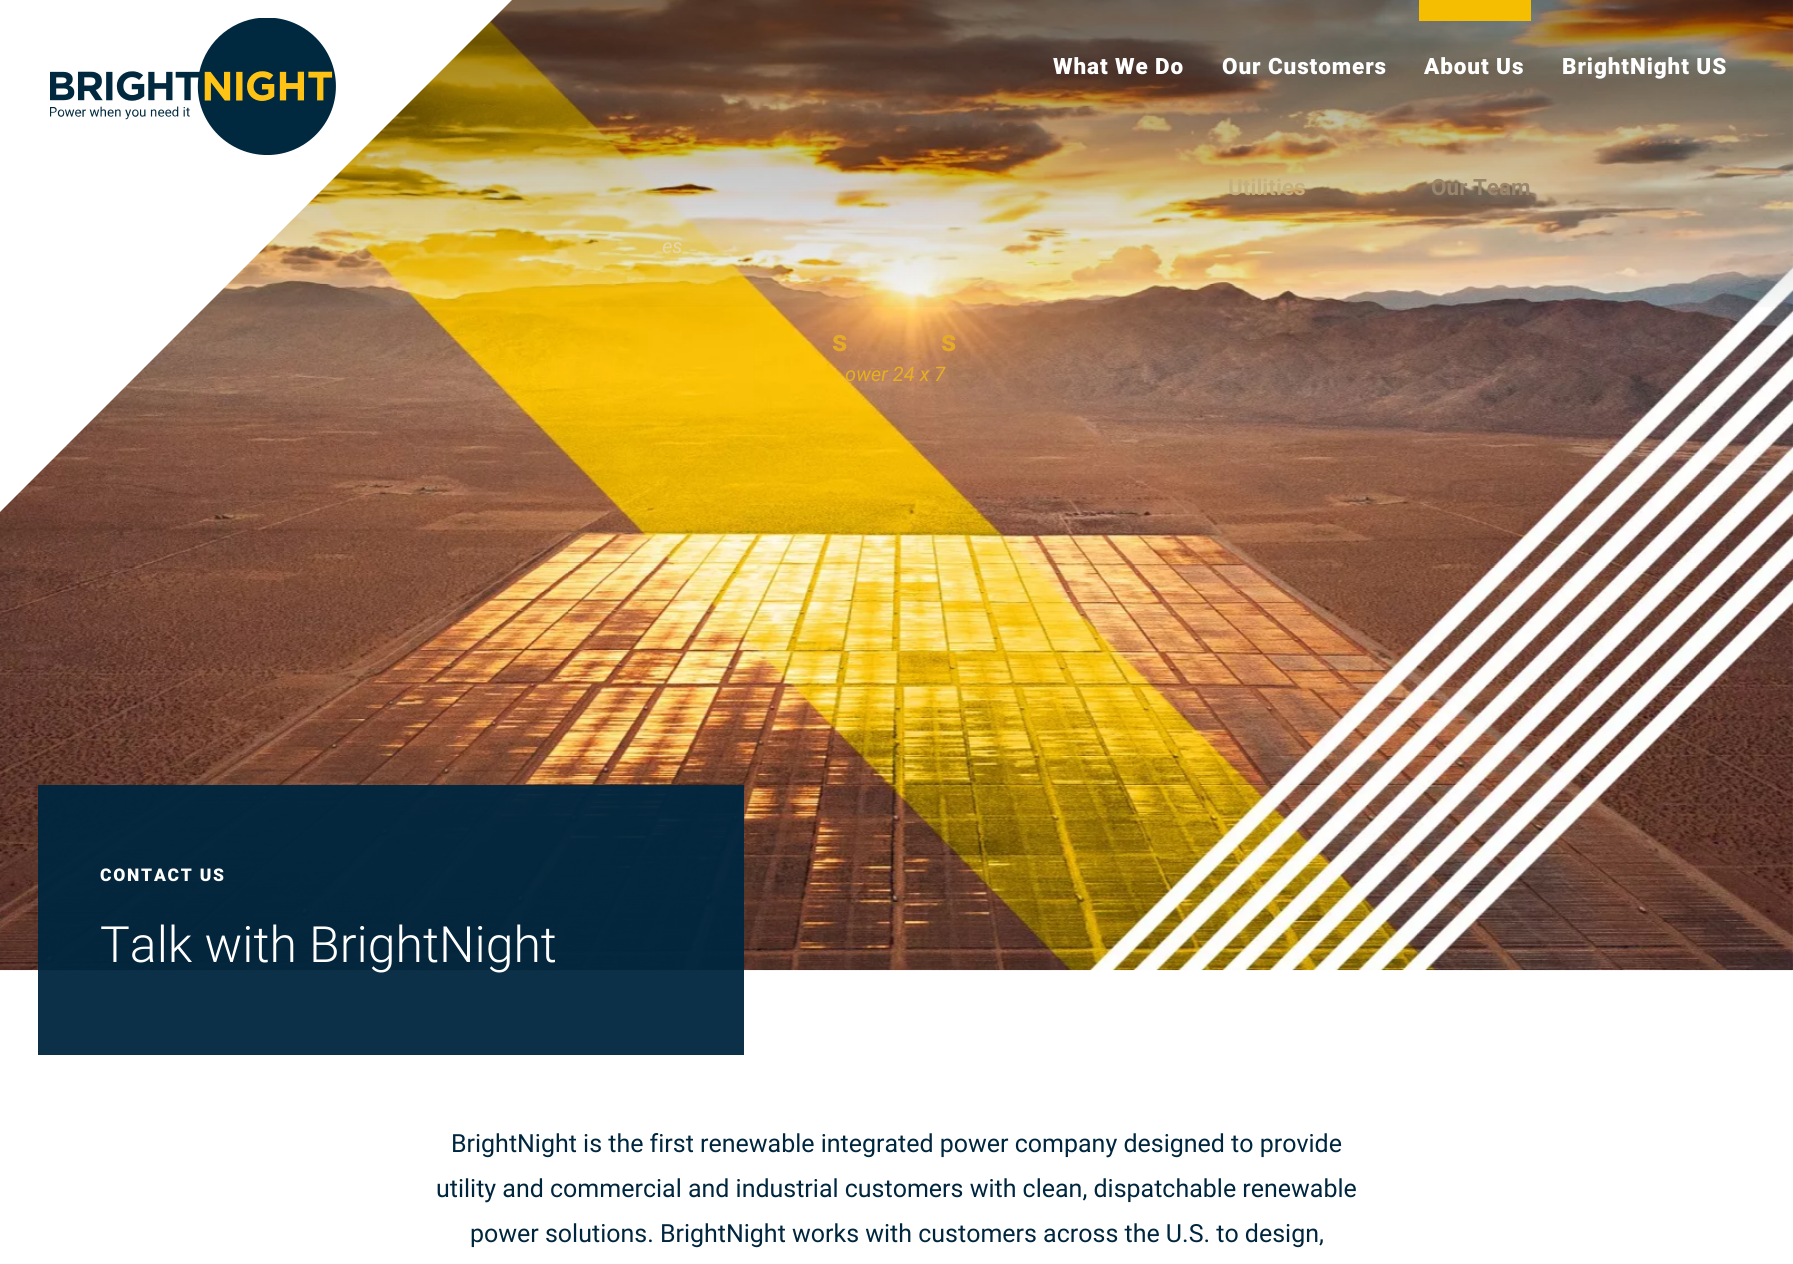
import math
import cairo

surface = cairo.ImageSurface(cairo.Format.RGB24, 1793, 1264)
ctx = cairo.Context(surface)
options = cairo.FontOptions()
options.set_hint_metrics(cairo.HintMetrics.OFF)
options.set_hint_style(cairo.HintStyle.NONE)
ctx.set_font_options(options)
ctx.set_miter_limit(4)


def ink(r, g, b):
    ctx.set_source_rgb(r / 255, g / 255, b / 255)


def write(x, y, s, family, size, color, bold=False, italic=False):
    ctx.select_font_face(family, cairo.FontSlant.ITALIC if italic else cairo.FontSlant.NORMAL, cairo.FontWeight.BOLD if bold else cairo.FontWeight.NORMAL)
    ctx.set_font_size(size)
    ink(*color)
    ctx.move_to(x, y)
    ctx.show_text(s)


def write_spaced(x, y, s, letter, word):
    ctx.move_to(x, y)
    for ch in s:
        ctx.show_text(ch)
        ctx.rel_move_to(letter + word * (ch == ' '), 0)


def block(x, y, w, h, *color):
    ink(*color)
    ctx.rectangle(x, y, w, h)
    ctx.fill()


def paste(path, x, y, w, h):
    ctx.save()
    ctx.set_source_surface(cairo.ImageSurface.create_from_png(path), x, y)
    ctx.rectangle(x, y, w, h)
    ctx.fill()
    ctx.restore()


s1 = dict(family="Roboto", size=20, color=(228, 215, 172), italic=True)
s2 = dict(family="Roboto", size=30, color=(230, 170, 41), bold=True)
s3 = dict(family="Roboto", size=20, color=(231, 175, 33), italic=True)
s4 = dict(family="Roboto", size=22.5, color=(197, 175, 125), bold=True)
s5 = dict(family="Roboto", size=22.5, color=(154, 134, 108), bold=True)
s6 = dict(family="Roboto Light", size=50, color=(255, 255, 255))
s7 = dict(family="Roboto", size=25, color=(0, 38, 62))

ink(255, 255, 255)
ctx.paint()
paste("pic2.png", 0, 0, 1793, 971)
gradient = cairo.LinearGradient(897, 0, 897, 325)
gradient.add_color_stop_rgba(0, 0, 0, 0, 0.4)
gradient.add_color_stop_rgba(1, 0, 0, 0, 0)
ctx.set_source(gradient)
ctx.rectangle(205, 0, 1588, 307)
ctx.fill()
ink(255, 255, 255)
ctx.new_path()
ctx.move_to(0, 0)
ctx.line_to(0, 512)
ctx.line_to(512, 0)
ctx.close_path()
ctx.fill()
paste("pic1.png", 50, 18, 286, 137)
ctx.select_font_face("Roboto Black")
ctx.set_font_size(22.5)
write_spaced(1053, 74, "What We Do", 0.9, 0)
write(662, 253, "es", **s1)
write(832, 351, "s", **s2)
write(941, 351, "s", **s2)
write(845, 381, "ower 24 x 7", **s3)
ctx.select_font_face("Roboto Black")
ctx.set_font_size(22.5)
ink(255, 255, 255)
write_spaced(1222, 74, "Our Customers", 0.9, 0)
write(1228, 195, "Utilities", **s4)
block(1419, 0, 112, 21, 246, 190, 0)
ctx.select_font_face("Roboto Black")
ink(255, 255, 255)
write_spaced(1424, 74, "About Us", 0.9, 0)
write(1431, 195, "Our Team", **s5)
ctx.select_font_face("Roboto Black")
ink(255, 255, 255)
write_spaced(1562, 74, "BrightNight US", 0.9, 0)
ctx.set_source_rgba(0, 0.149, 0.243, 0.95)
ctx.rectangle(38, 785, 706, 270)
ctx.fill()
ctx.set_font_size(17.5)
ink(255, 255, 255)
write_spaced(100, 881, "CONTACT US", 1.75, 0)
write(100, 962, "Talk with BrightNight", **s6)
write(451, 1152, "BrightNight is the first renewable integrated power company designed to provide", **s7)
write(436, 1197, "utility and commercial and industrial customers with clean, dispatchable renewable", **s7)
write(470, 1242, "power solutions. BrightNight works with customers across the U.S. to design,", **s7)
surface.write_to_png("screenshot.png")
